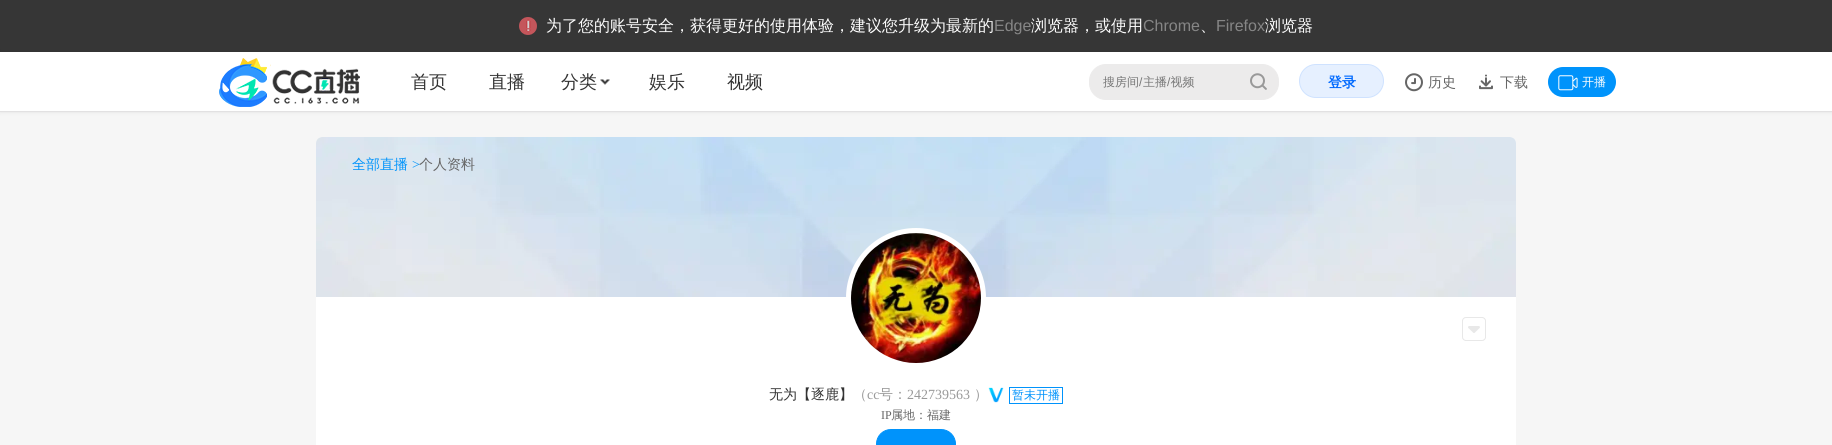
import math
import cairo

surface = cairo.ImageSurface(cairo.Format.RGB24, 1832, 445)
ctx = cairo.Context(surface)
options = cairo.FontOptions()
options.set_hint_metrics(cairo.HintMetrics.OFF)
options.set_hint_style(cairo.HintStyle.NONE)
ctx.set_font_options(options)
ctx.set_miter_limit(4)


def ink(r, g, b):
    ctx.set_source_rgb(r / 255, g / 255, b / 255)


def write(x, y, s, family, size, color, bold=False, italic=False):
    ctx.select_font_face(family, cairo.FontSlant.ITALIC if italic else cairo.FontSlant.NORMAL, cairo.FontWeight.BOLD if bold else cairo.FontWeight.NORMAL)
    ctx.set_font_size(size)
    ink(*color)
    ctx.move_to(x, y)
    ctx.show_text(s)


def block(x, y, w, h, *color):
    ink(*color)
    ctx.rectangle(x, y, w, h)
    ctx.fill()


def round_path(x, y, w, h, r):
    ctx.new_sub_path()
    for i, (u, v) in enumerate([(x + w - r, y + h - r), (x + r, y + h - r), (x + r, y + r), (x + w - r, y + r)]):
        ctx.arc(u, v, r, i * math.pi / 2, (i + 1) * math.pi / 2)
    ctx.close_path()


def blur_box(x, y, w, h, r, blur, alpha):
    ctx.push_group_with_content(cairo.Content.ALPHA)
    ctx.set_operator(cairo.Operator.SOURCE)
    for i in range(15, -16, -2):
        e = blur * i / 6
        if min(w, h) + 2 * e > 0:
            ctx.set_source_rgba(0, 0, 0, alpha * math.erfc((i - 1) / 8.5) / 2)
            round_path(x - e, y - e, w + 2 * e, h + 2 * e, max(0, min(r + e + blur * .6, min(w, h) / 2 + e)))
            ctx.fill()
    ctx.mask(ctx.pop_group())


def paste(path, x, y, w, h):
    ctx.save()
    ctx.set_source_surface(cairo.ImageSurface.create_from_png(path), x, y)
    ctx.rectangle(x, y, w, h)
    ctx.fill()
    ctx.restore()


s1 = dict(family="WenQuanYi Zen Hei Medium", size=16, color=(253, 253, 253))
s2 = dict(family="Liberation Sans", size=16, color=(134, 134, 134))
s3 = dict(family="WenQuanYi Zen Hei Medium", size=18, color=(51, 51, 51))
s4 = dict(family="WenQuanYi Zen Hei Medium", size=12, color=(117, 117, 117))
s5 = dict(family="Liberation Sans", size=12, color=(117, 117, 117))
s6 = dict(family="WenQuanYi Zen Hei", size=14, color=(0, 105, 255), bold=True)
s7 = dict(family="WenQuanYi Zen Hei Medium", size=14, color=(102, 102, 102))
s8 = dict(family="WenQuanYi Zen Hei Medium", size=12, color=(253, 253, 253))
s9 = dict(family="WenQuanYi Zen Hei Medium", size=14, color=(0, 147, 251))
s10 = dict(family="Liberation Serif", size=14, color=(0, 147, 251))
s11 = dict(family="WenQuanYi Zen Hei Medium", size=14, color=(51, 51, 51))
s12 = dict(family="WenQuanYi Zen Hei Medium", size=14, color=(153, 153, 153))
s13 = dict(family="Liberation Serif", size=14, color=(153, 153, 153))
s14 = dict(family="WenQuanYi Zen Hei Medium", size=12, color=(0, 147, 251))
s15 = dict(family="Liberation Serif", size=12, color=(102, 102, 102))
s16 = dict(family="WenQuanYi Zen Hei Medium", size=12, color=(102, 102, 102))

ink(246, 246, 246)
ctx.paint()
block(0, 0, 1832, 52, 54, 54, 54)
paste("pic1.png", 519, 17, 18, 18)
write(546, 31, "为了您的账号安全，获得更好的使用体验，建议您升级为最新的", **s1)
write(994, 31, "Edge", **s2)
write(1031, 31, "浏览器，或使用", **s1)
write(1143, 31, "Chrome", **s2)
write(1200, 31, "、", **s1)
write(1216, 31, "Firefox", **s2)
write(1265, 31, "浏览器", **s1)
ink(0, 0, 0)
blur_box(0, 52, 1832, 60, 0, 2, 0.09)
block(0, 52, 1832, 59, 255, 255, 255)
block(0, 111, 1832, 1, 226, 225, 226)
paste("pic2.png", 219, 58, 141, 49)
write(411, 88, "首页", **s3)
write(489, 88, "直播", **s3)
write(561, 88, "分类", **s3)
paste("pic3.png", 600, 79, 10, 6)
write(649, 88, "娱乐", **s3)
write(727, 88, "视频", **s3)
ink(236, 235, 235)
round_path(1089.5, 64.5, 189, 35, 16.5)
ctx.fill_preserve()
ctx.set_line_width(1)
ctx.stroke()
write(1103, 86, "搜房间", **s4)
write(1139, 86, "/", **s5)
write(1143, 86, "主播 视频", **s4)
write(1167, 86, "/", **s5)
paste("pic4.png", 1250, 73, 17, 17)
ink(230, 240, 255)
round_path(1299, 64, 85, 34, 17)
ctx.fill()
round_path(1299.5, 64.5, 84, 33, 16.5)
ctx.set_source_rgba(0, 0.412, 1, 0.1)
ctx.stroke()
write(1328, 87, "登录", **s6)
paste("pic5.png", 1405, 73, 18, 19)
write(1428, 87, "历史", **s7)
paste("pic6.png", 1479, 74, 14, 16)
write(1500, 87, "下载", **s7)
ink(0, 147, 251)
round_path(1548, 67, 68, 30, 15)
ctx.fill()
paste("pic7.png", 1558, 75, 20, 16)
write(1582, 86, "开播", **s8)
ink(255, 255, 255)
round_path(316, 137, 1200, 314, 6)
ctx.fill()
paste("pic8.png", 316, 137, 1200, 160)
write(352, 169, "全部直播", **s9)
write(412, 169, ">", **s10)
write(419, 169, "个人资料", **s7)
paste("pic9.png", 1462, 317, 24, 24)
ink(255, 255, 255)
ctx.arc(916, 298, 70, 0, 2 * math.pi)
ctx.fill()
paste("pic10.png", 851, 233, 130, 130)
write(769, 399, "无为【逐鹿】", **s11)
write(853, 399, "（", **s12)
write(867, 399, "cc", **s13)
write(879, 399, "号：", **s12)
write(907, 399, "242739563", **s13)
write(974, 399, "）", **s12)
paste("pic11.png", 988, 387, 16, 16)
ctx.rectangle(1009.5, 387.5, 53, 16)
ink(0, 147, 251)
ctx.stroke()
write(1012, 399, "暂未开播", **s14)
write(881, 419, "IP", **s15)
write(891, 419, "属地：福建", **s16)
ink(0, 147, 251)
round_path(876.5, 429.5, 79, 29, 14.5)
ctx.fill_preserve()
ctx.stroke()
surface.write_to_png("screenshot.png")
